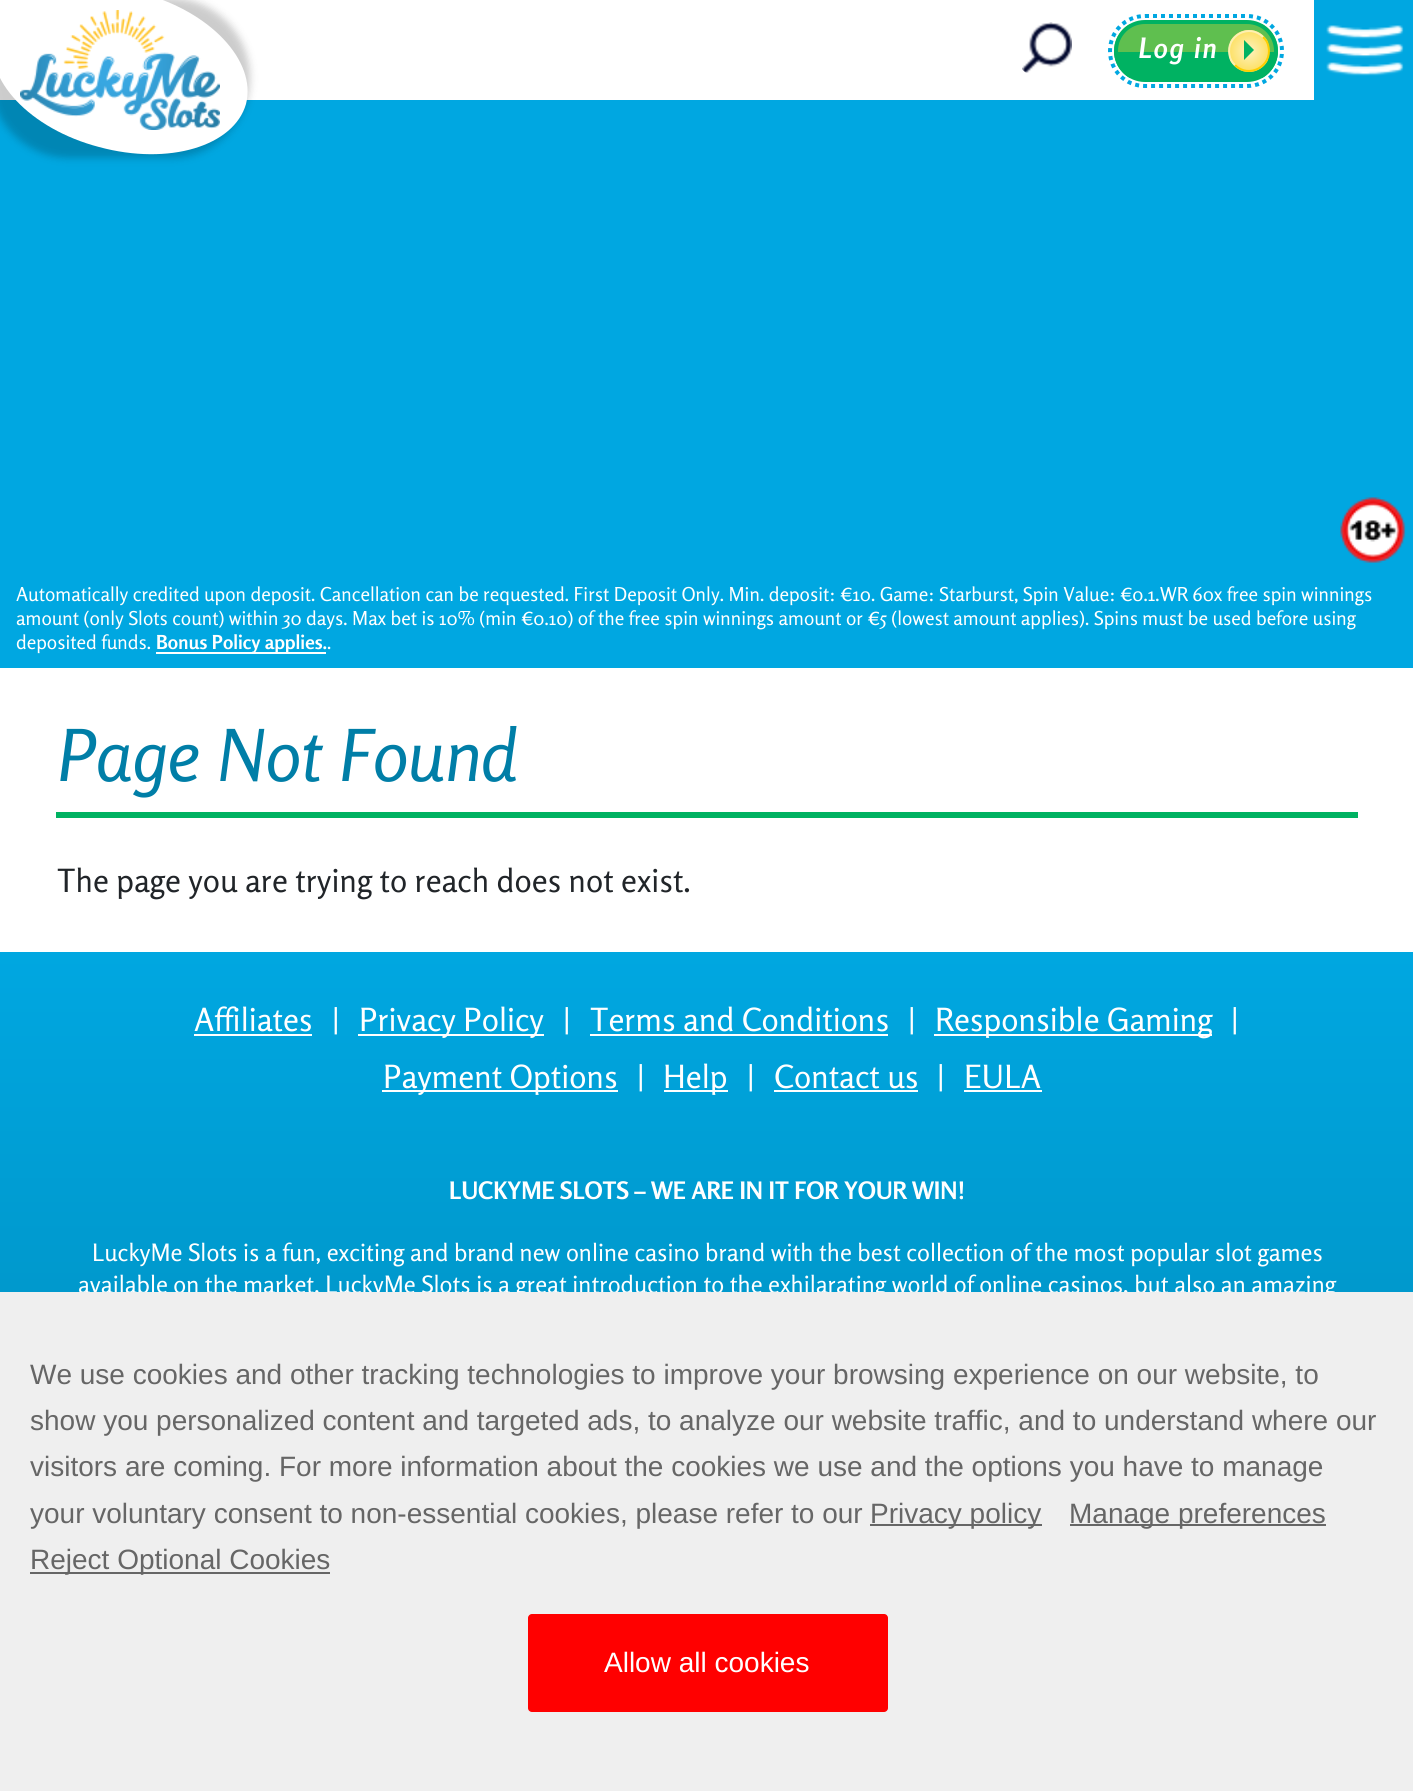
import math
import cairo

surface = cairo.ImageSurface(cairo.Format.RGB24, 1413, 1791)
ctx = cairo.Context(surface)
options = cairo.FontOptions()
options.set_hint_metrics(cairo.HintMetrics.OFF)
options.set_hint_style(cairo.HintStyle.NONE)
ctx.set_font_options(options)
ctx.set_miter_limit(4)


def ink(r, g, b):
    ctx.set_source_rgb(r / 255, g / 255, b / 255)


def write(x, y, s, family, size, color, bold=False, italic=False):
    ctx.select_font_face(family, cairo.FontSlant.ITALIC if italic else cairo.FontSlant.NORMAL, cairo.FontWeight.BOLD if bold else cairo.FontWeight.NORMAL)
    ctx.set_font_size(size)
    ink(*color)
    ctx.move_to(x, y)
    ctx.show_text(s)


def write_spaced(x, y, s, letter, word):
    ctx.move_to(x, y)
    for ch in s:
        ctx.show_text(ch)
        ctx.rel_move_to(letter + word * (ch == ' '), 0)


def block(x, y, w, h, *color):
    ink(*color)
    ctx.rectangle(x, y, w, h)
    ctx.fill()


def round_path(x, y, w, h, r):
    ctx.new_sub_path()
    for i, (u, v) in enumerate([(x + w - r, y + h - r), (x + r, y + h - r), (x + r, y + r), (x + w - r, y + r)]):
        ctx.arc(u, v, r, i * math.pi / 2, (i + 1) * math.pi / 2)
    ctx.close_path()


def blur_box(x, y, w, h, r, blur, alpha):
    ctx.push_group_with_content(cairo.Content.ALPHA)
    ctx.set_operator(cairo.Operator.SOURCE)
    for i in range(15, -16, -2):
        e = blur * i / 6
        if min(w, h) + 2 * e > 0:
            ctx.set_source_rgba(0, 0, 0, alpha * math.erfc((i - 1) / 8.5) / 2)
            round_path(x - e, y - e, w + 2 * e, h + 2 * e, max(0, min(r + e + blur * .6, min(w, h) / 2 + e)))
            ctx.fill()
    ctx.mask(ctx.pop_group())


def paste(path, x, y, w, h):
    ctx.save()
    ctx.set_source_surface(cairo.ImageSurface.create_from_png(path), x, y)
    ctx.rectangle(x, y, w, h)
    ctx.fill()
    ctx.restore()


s1 = dict(family="Rosario", size=19.2, color=(255, 255, 255))
s2 = dict(family="Rosario", size=19.2, color=(255, 255, 255), bold=True)
s3 = dict(family="Rosario", size=72, color=(0, 126, 167), italic=True)
s4 = dict(family="Rosario", size=32, color=(33, 37, 41))
s5 = dict(family="Rosario", size=32, color=(255, 255, 255))
s6 = dict(family="Rosario", size=24, color=(255, 255, 255), bold=True)
s7 = dict(family="Rosario", size=24, color=(255, 255, 255))
s8 = dict(family="Liberation Sans", size=28, color=(102, 102, 102))
s9 = dict(family="Liberation Sans", size=28, color=(255, 255, 255))

ink(255, 255, 255)
ctx.paint()
block(0, 100, 1413, 568, 0, 167, 225)
ink(0, 0, 0)
blur_box(-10, -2, 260, 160, 80, 4, 0.2)
ink(255, 255, 255)
ctx.new_path()
ctx.move_to(141, -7)
ctx.curve_to(210, 11, 257, 61, 246, 104)
ctx.curve_to(234, 146, 169, 166, 99, 147)
ctx.curve_to(30, 129, -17, 79, -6, 36)
ctx.curve_to(6, -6, 71, -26, 141, -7)
ctx.close_path()
ctx.fill()
paste("pic1.png", 20, 10, 200, 120)
paste("pic2.png", 1022, 22, 50, 51)
ctx.new_path()
ctx.move_to(1145, 16)
ctx.line_to(1247, 16)
ctx.curve_to(1266.5, 16, 1282, 31.5, 1282, 51)
ctx.curve_to(1282, 70.5, 1266.5, 86, 1247, 86)
ctx.line_to(1145, 86)
ctx.curve_to(1125.5, 86, 1110, 70.5, 1110, 51)
ctx.curve_to(1110, 31.5, 1125.5, 16, 1145, 16)
ctx.close_path()
ink(0, 167, 225)
ctx.set_line_width(4)
ctx.set_dash([4, 4])
ctx.stroke()
ctx.save()
round_path(1114, 20, 164, 62, 31)
ctx.clip()
block(1114, 24, 164, 28, 95, 191, 79)
block(1114, 52, 164, 26, 0, 178, 98)
ctx.restore()
round_path(1116, 22, 160, 58, 29)
ink(0, 178, 98)
ctx.set_dash([])
ctx.stroke()
ctx.select_font_face("Rosario", cairo.FontSlant.ITALIC, cairo.FontWeight.BOLD)
ctx.set_font_size(28)
ink(255, 255, 255)
write_spaced(1139, 58, "Log in", 2, 0)
ctx.save()
round_path(1228, 30, 42, 42, 21)
ctx.clip()
gradient = cairo.RadialGradient(1249, 13, 0, 1249, 13, 27)
gradient.add_color_stop_rgba(0, 0.996, 0.949, 0.753, 1)
gradient.add_color_stop_rgba(1, 0.988, 0.855, 0.275, 1)
ctx.set_source(gradient)
ctx.rectangle(1240, 30, 18, 2)
ctx.fill()
gradient = cairo.RadialGradient(1249, 51, 0, 1249, 51, 27)
gradient.add_color_stop_rgba(0, 0.996, 0.949, 0.753, 1)
gradient.add_color_stop_rgba(1, 0.988, 0.855, 0.275, 1)
ctx.set_source(gradient)
ctx.rectangle(1230, 32, 38, 38)
ctx.fill()
gradient = cairo.RadialGradient(1249, 89, 0, 1249, 89, 27)
gradient.add_color_stop_rgba(0, 0.996, 0.949, 0.753, 1)
gradient.add_color_stop_rgba(1, 0.988, 0.855, 0.275, 1)
ctx.set_source(gradient)
ctx.rectangle(1240, 70, 18, 2)
ctx.fill()
ctx.restore()
ctx.new_path()
ctx.move_to(1263, 37)
ctx.curve_to(1266, 39.5, 1268, 43, 1268.5, 47)
ctx.curve_to(1272.5, 66.5, 1248.5, 79, 1235, 65)
ink(253, 207, 0)
ctx.set_line_width(2)
ctx.stroke()
ctx.new_path()
ctx.move_to(1235, 65)
ctx.curve_to(1232, 62.5, 1230, 59, 1229.5, 55)
ctx.curve_to(1225.5, 35.5, 1249.5, 23, 1263, 37)
ink(253, 240, 178)
ctx.stroke()
ink(0, 178, 98)
ctx.new_path()
ctx.move_to(1244, 60)
ctx.line_to(1244, 40)
ctx.line_to(1254, 50)
ctx.close_path()
ctx.fill()
block(1314, 0, 99, 100, 0, 167, 225)
paste("pic3.png", 1326, 25, 78, 51)
paste("pic4.png", 1340, 497, 66, 66)
write(16, 601, "Automatically credited upon deposit. Cancellation can be requested. First Deposit Only. Min. deposit: €10. Game: Starburst, Spin Value: €0.1.WR 60x free spin winnings", **s1)
write(16, 625, "amount (only Slots count) within 30 days. Max bet is 10% (min €0.10) of the free spin winnings amount or €5 (lowest amount applies). Spins must be used before using", **s1)
write(16, 649, "deposited funds.", **s1)
block(156, 652, 170, 2, 255, 255, 255)
write(156, 649, "Bonus Policy applies.", **s2)
write(327, 649, ".", **s1)
block(56, 812, 1302, 6, 0, 178, 98)
write(57, 781, "Page Not Found", **s3)
write(57, 892, "The page you are trying to reach does not exist.", **s4)
gradient = cairo.LinearGradient(707, 952, 707, 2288)
gradient.add_color_stop_rgba(0, 0, 0.655, 0.882, 1)
gradient.add_color_stop_rgba(0.73, 0, 0.494, 0.655, 1)
ctx.set_source(gradient)
ctx.rectangle(0, 952, 1413, 340)
ctx.fill()
write(194, 1031, "Affiliates", **s5)
block(194, 1034, 118, 2, 255, 255, 255)
write(332, 1031, "|", **s5)
block(358, 1034, 186, 2, 255, 255, 255)
write(359, 1031, "Privacy Policy", **s5)
write(563, 1031, "|", **s5)
write(590, 1031, "Terms and Conditions", **s5)
block(590, 1034, 298, 2, 255, 255, 255)
write(908, 1031, "|", **s5)
block(934, 1034, 278, 2, 255, 255, 255)
write(935, 1031, "Responsible Gaming", **s5)
write(1231, 1031, "|", **s5)
block(382, 1090, 236, 2, 255, 255, 255)
write(383, 1088, "Payment Options", **s5)
write(637, 1088, "|", **s5)
block(664, 1090, 64, 2, 255, 255, 255)
write(663, 1088, "Help", **s5)
write(747, 1088, "|", **s5)
write(774, 1088, "Contact us", **s5)
block(774, 1090, 144, 2, 255, 255, 255)
write(937, 1088, "|", **s5)
write(964, 1088, "EULA", **s5)
block(964, 1090, 78, 2, 255, 255, 255)
write(449, 1199, "LUCKYME SLOTS – WE ARE IN IT FOR YOUR WIN!", **s6)
write(92, 1261, "LuckyMe Slots is a fun, exciting and brand new online casino brand with the best collection of the most popular slot games", **s7)
write(78, 1293, "available on the market. LuckyMe Slots is a great introduction to the exhilarating world of online casinos, but also an amazing", **s7)
block(0, 1292, 1413, 499, 239, 239, 239)
write(30, 1384, "We use cookies and other tracking technologies to improve your browsing experience on our website, to", **s8)
write(30, 1430, "show you personalized content and targeted ads, to analyze our website traffic, and to understand where our", **s8)
write(30, 1476, "visitors are coming. For more information about the cookies we use and the options you have to manage", **s8)
write(30, 1523, "your voluntary consent to non-essential cookies, please refer to our", **s8)
block(870, 1524, 172, 2, 102, 102, 102)
write(870, 1523, "Privacy policy", **s8)
block(1070, 1524, 256, 2, 102, 102, 102)
write(1069, 1523, "Manage preferences", **s8)
block(30, 1572, 300, 2, 102, 102, 102)
write(30, 1569, "Reject Optional Cookies", **s8)
ink(255, 0, 0)
round_path(528, 1614, 360, 98, 4)
ctx.fill()
write(604, 1672, "Allow all cookies", **s9)
surface.write_to_png("screenshot.png")
